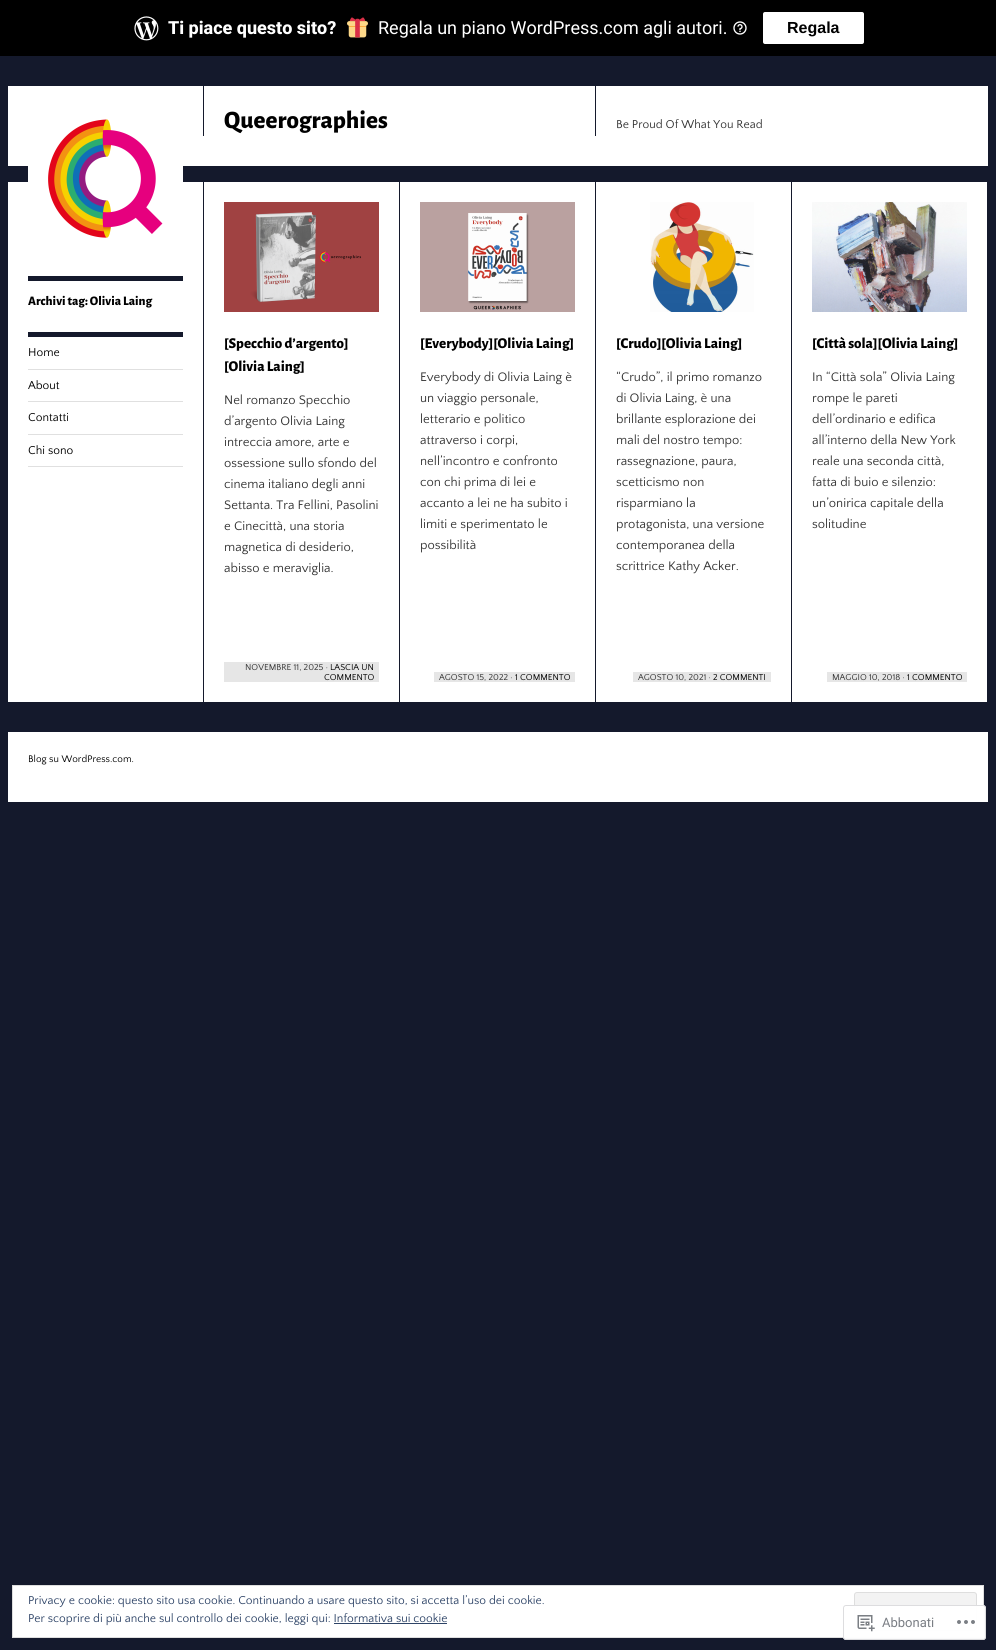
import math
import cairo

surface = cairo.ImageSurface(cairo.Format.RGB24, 996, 1650)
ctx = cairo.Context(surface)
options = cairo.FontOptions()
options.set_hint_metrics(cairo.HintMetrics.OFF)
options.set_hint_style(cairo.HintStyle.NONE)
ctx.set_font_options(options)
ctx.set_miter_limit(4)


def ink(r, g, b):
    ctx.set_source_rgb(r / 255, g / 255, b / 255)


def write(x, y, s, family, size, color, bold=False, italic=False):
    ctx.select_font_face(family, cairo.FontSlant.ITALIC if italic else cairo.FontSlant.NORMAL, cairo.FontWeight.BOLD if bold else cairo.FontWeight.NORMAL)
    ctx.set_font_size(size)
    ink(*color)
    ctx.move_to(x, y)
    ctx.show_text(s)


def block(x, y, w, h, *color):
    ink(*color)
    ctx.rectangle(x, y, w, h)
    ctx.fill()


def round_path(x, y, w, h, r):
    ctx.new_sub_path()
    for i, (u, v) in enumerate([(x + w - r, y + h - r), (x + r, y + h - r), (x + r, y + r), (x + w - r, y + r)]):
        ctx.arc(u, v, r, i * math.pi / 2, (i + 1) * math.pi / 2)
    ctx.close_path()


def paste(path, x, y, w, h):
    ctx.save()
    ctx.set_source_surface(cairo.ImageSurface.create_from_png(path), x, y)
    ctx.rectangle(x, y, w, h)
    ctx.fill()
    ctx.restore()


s1 = dict(family="Roboto ExtraBold", size=18, color=(255, 255, 255))
s2 = dict(family="Roboto", size=18, color=(255, 255, 255))
s3 = dict(family="Liberation Sans", size=16, color=(0, 0, 0), bold=True)
s4 = dict(family="Alegreya Sans ExtraBold", size=25, color=(0, 0, 0))
s5 = dict(family="Quattrocento Sans", size=12, color=(51, 51, 51))
s6 = dict(family="Alegreya Sans ExtraBold", size=13, color=(0, 0, 0))
s7 = dict(family="Quattrocento Sans", size=12, color=(0, 0, 0))
s8 = dict(family="Alegreya Sans ExtraBold", size=15, color=(0, 0, 0))
s9 = dict(family="Quattrocento Sans", size=13, color=(51, 51, 51))
s10 = dict(family="Quattrocento Sans", size=9, color=(51, 51, 51))
s11 = dict(family="Quattrocento Sans", size=9, color=(0, 0, 0))
s12 = dict(family="Quattrocento Sans", size=10, color=(0, 0, 0))
s13 = dict(family="Quattrocento Sans", size=12, color=(46, 68, 103))
s14 = dict(family="Roboto", size=13, color=(122, 126, 132))

ink(20, 25, 44)
ctx.paint()
block(0, 0, 996, 56, 0, 0, 0)
paste("pic1.png", 134, 16, 25, 25)
write(168, 34, "Ti piace questo sito?", **s1)
paste("pic2.png", 347, 17, 21, 21)
write(378, 34, "Regala un piano WordPress.com agli autori.", **s2)
paste("pic3.png", 733, 21, 14, 14)
round_path(763, 12, 101, 32, 2)
ctx.fill()
write(787, 33, "Regala", **s3)
block(8, 86, 980, 80, 255, 255, 255)
block(8, 182, 979, 520, 255, 255, 255)
paste("pic4.png", 28, 119, 155, 119)
block(203, 86, 1, 50, 20, 25, 44)
write(224, 128, "Queerographies", **s4)
block(595, 86, 1, 50, 20, 25, 44)
write(616, 128, "Be Proud Of What You Read", **s5)
block(203, 181, 1, 521, 20, 25, 44)
block(28, 276, 155, 5, 20, 25, 44)
write(28, 305, "Archivi tag: Olivia Laing", **s6)
block(28, 332, 155, 5, 20, 25, 44)
block(28, 369, 155, 1, 224, 224, 224)
write(28, 356, "Home", **s7)
block(28, 401, 155, 1, 224, 224, 224)
write(28, 389, "About", **s7)
block(28, 434, 155, 1, 224, 224, 224)
write(28, 421, "Contatti", **s7)
block(28, 466, 155, 1, 224, 224, 224)
write(28, 454, "Chi sono", **s7)
block(399, 181, 1, 521, 20, 25, 44)
paste("pic5.png", 224, 202, 155, 110)
write(224, 348, "[Specchio d’argento]", **s8)
write(224, 371, "[Olivia Laing]", **s8)
write(224, 404, "Nel romanzo Specchio", **s9)
write(224, 425, "d’argento Olivia Laing", **s9)
write(224, 446, "intreccia amore, arte e", **s9)
write(224, 467, "ossessione sullo sfondo del", **s9)
write(224, 488, "cinema italiano degli anni", **s9)
write(224, 509, "Settanta. Tra Fellini, Pasolini", **s9)
write(224, 530, "e Cinecittà, una storia", **s9)
write(224, 551, "magnetica di desiderio,", **s9)
write(224, 572, "abisso e meraviglia.", **s9)
block(224, 662, 155, 20, 230, 230, 230)
write(245, 670, "NOVEMBRE 11, 2025 ·", **s10)
write(330, 670, "LASCIA UN", **s11)
write(324, 680, "COMMENTO", **s11)
block(595, 181, 1, 521, 20, 25, 44)
paste("pic6.png", 420, 202, 155, 110)
write(420, 348, "[Everybody][Olivia Laing]", **s8)
write(420, 381, "Everybody di Olivia Laing è", **s9)
write(420, 402, "un viaggio personale,", **s9)
write(420, 423, "letterario e politico", **s9)
write(420, 444, "attraverso i corpi,", **s9)
write(420, 465, "nell’incontro e confronto", **s9)
write(420, 486, "con chi prima di lei e", **s9)
write(420, 507, "accanto a lei ne ha subito i", **s9)
write(420, 528, "limiti e sperimentato le", **s9)
write(420, 549, "possibilità", **s9)
block(434, 672, 141, 10, 230, 230, 230)
write(439, 680, "AGOSTO 15, 2022 ·", **s10)
write(515, 680, "1 COMMENTO", **s11)
block(791, 181, 1, 521, 20, 25, 44)
paste("pic7.png", 650, 202, 104, 110)
write(616, 348, "[Crudo][Olivia Laing]", **s8)
write(616, 381, "“Crudo”, il primo romanzo", **s9)
write(616, 402, "di Olivia Laing, è una", **s9)
write(616, 423, "brillante esplorazione dei", **s9)
write(616, 444, "mali del nostro tempo:", **s9)
write(616, 465, "rassegnazione, paura,", **s9)
write(616, 486, "scetticismo non", **s9)
write(616, 507, "risparmiano la", **s9)
write(616, 528, "protagonista, una versione", **s9)
write(616, 549, "contemporanea della", **s9)
write(616, 570, "scrittrice Kathy Acker.", **s9)
block(633, 672, 138, 10, 230, 230, 230)
write(638, 680, "AGOSTO 10, 2021 ·", **s10)
write(713, 680, "2 COMMENTI", **s11)
paste("pic8.png", 812, 202, 155, 110)
write(812, 348, "[Città sola][Olivia Laing]", **s8)
write(812, 381, "In “Città sola” Olivia Laing", **s9)
write(812, 402, "rompe le pareti", **s9)
write(812, 423, "dell’ordinario e edifica", **s9)
write(812, 444, "all’interno della New York", **s9)
write(812, 465, "reale una seconda città,", **s9)
write(812, 486, "fatta di buio e silenzio:", **s9)
write(812, 507, "un’onirica capitale della", **s9)
write(812, 528, "solitudine", **s9)
block(827, 672, 140, 10, 230, 230, 230)
write(832, 680, "MAGGIO 10, 2018 ·", **s10)
write(907, 680, "1 COMMENTO", **s11)
block(8, 732, 980, 70, 255, 255, 255)
write(28, 762, "Blog su WordPress.com.", **s12)
ink(255, 255, 255)
ctx.rectangle(12.5, 1585.5, 971, 52)
ctx.fill_preserve()
ink(222, 222, 222)
ctx.set_line_width(1)
ctx.stroke()
write(28, 1604, "Privacy e cookie: questo sito usa cookie. Continuando a usare questo sito, si accetta l’uso dei cookie.", **s13)
ink(243, 243, 243)
round_path(854.5, 1592.5, 122, 38, 2.5)
ctx.fill_preserve()
ink(222, 222, 222)
ctx.stroke()
write(28, 1622, "Per scoprire di più anche sul controllo dei cookie, leggi qui: Informativa sui cookie", **s13)
block(334, 1623, 113, 1, 46, 68, 103)
ctx.set_source_rgba(1, 1, 1, 0.98)
round_path(843, 1605, 143, 35, 3)
ctx.fill()
round_path(843.5, 1605.5, 142, 34, 2.5)
ctx.set_source_rgba(0.863, 0.863, 0.871, 0.98)
ctx.stroke()
paste("pic9.png", 857, 1615, 18, 17)
write(882, 1627, "Abbonati", **s14)
paste("pic10.png", 957, 1620, 18, 4)
surface.write_to_png("screenshot.png")
